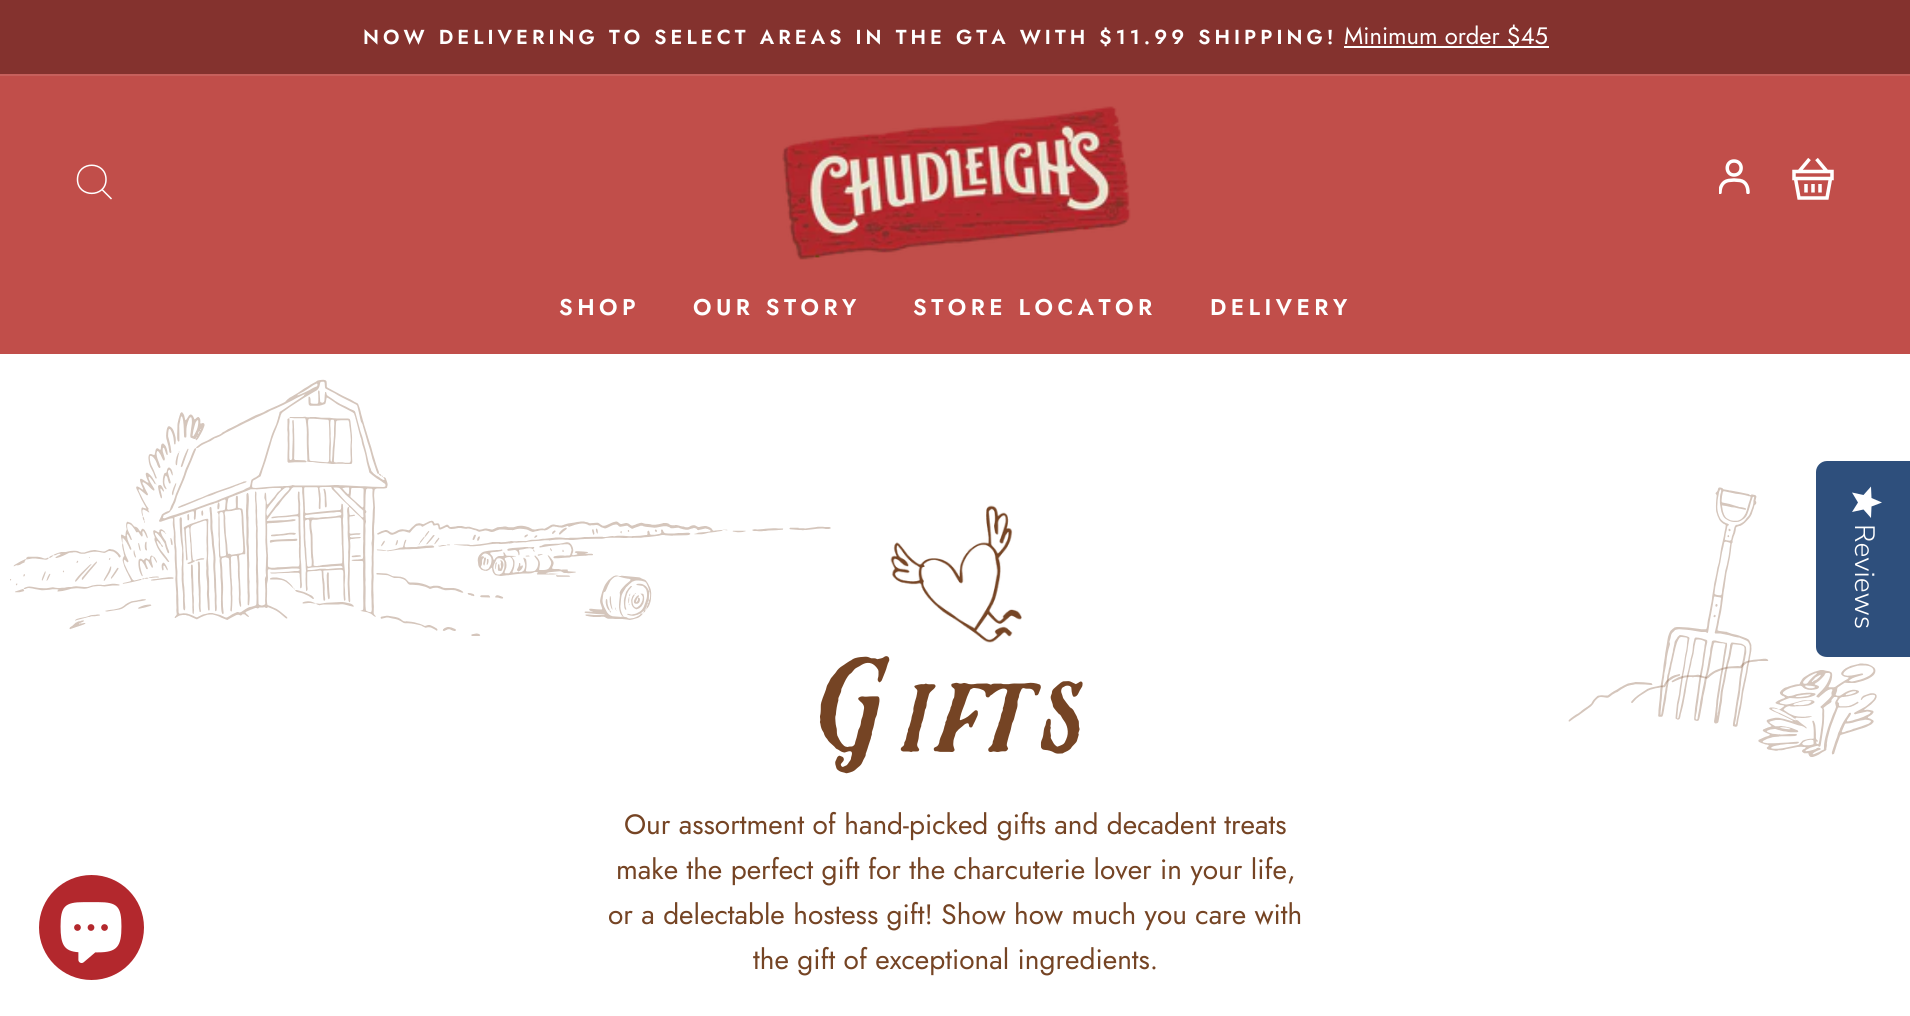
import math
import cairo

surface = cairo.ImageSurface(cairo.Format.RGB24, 1910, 1016)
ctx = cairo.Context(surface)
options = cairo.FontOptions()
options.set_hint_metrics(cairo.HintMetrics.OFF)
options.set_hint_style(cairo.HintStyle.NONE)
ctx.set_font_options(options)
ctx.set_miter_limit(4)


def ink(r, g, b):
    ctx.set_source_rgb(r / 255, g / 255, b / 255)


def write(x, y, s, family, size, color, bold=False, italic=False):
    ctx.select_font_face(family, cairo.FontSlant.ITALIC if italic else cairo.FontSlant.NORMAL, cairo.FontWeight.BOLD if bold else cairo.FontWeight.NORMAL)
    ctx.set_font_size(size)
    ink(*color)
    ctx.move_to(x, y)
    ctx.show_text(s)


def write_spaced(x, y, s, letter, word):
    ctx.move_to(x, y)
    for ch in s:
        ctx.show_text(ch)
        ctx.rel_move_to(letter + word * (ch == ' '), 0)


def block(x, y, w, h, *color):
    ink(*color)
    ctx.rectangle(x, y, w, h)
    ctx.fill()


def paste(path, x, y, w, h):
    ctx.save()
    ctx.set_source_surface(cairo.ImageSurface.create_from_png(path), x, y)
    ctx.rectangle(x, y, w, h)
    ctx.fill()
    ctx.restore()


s1 = dict(family="Jost", size=23.75, color=(255, 255, 255))
s2 = dict(family="Jost", size=28, color=(117, 68, 36))
s3 = dict(family="Nunito Sans Light", size=28, color=(255, 255, 255))

ink(255, 255, 255)
ctx.paint()
block(0, 0, 1910, 74, 132, 50, 46)
ctx.select_font_face("Jost SemiBold")
ctx.set_font_size(20.25)
ink(255, 255, 255)
write_spaced(363, 44, "NOW DELIVERING TO SELECT AREAS IN THE GTA WITH $11.99 SHIPPING!", 4.05, 0)
block(1344, 46, 205, 2, 255, 255, 255)
write(1344, 44, "Minimum order $45", **s1)
block(0, 76, 1910, 278, 193, 78, 74)
block(0, 74, 1910, 2, 199, 96, 92)
ctx.new_path()
ctx.move_to(106, 179.5)
ctx.curve_to(106, 198, 77.5, 198, 77.5, 179.5)
ctx.curve_to(77.5, 160.5, 106, 160.5, 106, 179.5)
ctx.close_path()
ctx.move_to(111.5, 199)
ctx.line_to(102, 189.5)
ink(255, 255, 255)
ctx.set_line_width(1.5)
ctx.stroke()
paste("pic1.png", 782, 106, 349, 154)
ctx.save()
ctx.rectangle(1719, 159, 31, 35)
ctx.clip()
ctx.new_path()
ctx.move_to(1734, 175)
ctx.curve_to(1725, 175, 1725, 161, 1734, 161)
ctx.curve_to(1743.5, 161, 1743.5, 175, 1734, 175)
ctx.close_path()
ctx.move_to(1720, 192.5)
ctx.curve_to(1720, 187, 1722.5, 181.5, 1728.5, 180.5)
ctx.line_to(1734, 180)
ctx.line_to(1740, 180.5)
ctx.curve_to(1746, 181.5, 1748, 187, 1748, 192.5)
ctx.set_line_width(3.5)
ctx.set_line_cap(cairo.LineCap.ROUND)
ctx.stroke()
ctx.restore()
ctx.new_path()
ctx.move_to(1813, 184)
ctx.line_to(1813, 192.5)
ctx.move_to(1795.5, 178.5)
ctx.line_to(1830.5, 178.5)
ctx.line_to(1827, 198)
ctx.line_to(1799, 198)
ctx.close_path()
ctx.move_to(1827, 171.5)
ctx.line_to(1816.5, 159)
ctx.close_path()
ctx.move_to(1799, 171.5)
ctx.line_to(1809.5, 159)
ctx.close_path()
ctx.move_to(1794, 171.5)
ctx.line_to(1832, 171.5)
ctx.line_to(1832, 178.5)
ctx.line_to(1794, 178.5)
ctx.close_path()
ctx.move_to(1806, 184)
ctx.line_to(1806, 192.5)
ctx.close_path()
ctx.move_to(1820, 184)
ctx.line_to(1820, 192.5)
ctx.close_path()
ctx.set_line_width(3.5)
ctx.stroke()
ctx.select_font_face("Jost SemiBold")
ctx.set_font_size(22.75)
write_spaced(559, 315, "SHOP", 4.5, 0)
write_spaced(693, 315, "OUR STORY", 4.5, 0)
write_spaced(913, 315, "STORE LOCATOR", 4.5, 0)
write_spaced(1210, 315, "DELIVERY", 4.5, 0)
paste("pic2.png", 10, 379, 1867, 378)
paste("pic3.png", 890, 505, 132, 138)
ctx.select_font_face("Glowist")
ctx.set_font_size(130)
ink(117, 68, 36)
write_spaced(820, 752, "Gifts", 7.75, 0)
write(624, 834, "Our assortment of hand-picked gifts and decadent treats", **s2)
write(616, 879, "make the perfect gift for the charcuterie lover in your life,", **s2)
write(608, 924, "or a delectable hostess gift! Show how much you care with", **s2)
write(753, 969, "the gift of exceptional ingredients.", **s2)
ink(46, 79, 124)
ctx.new_path()
ctx.move_to(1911, 461)
ctx.line_to(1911, 657)
ctx.line_to(1827, 657)
ctx.curve_to(1821, 657, 1816, 653, 1816, 647)
ctx.line_to(1816, 472)
ctx.curve_to(1816, 466, 1821, 461, 1827, 461)
ctx.close_path()
ctx.fill()
gradient = cairo.LinearGradient(1882, 487, 1882, 518)
gradient.add_color_stop_rgba(1, 1, 1, 1, 1)
gradient.add_color_stop_rgba(1, 0.918, 0.918, 0.918, 1)
ctx.set_source(gradient)
ctx.new_path()
ctx.move_to(1858, 502.5)
ctx.line_to(1852, 512)
ctx.line_to(1863.5, 509.5)
ctx.line_to(1871, 518)
ctx.line_to(1871.5, 506.5)
ctx.line_to(1882, 502.5)
ctx.line_to(1871.5, 498)
ctx.line_to(1871, 486.5)
ctx.line_to(1863.5, 495)
ctx.line_to(1852, 492.5)
ctx.close_path()
ctx.fill()
ctx.save()
ctx.translate(1855, 524)
ctx.rotate(90 * math.pi / 180)
write(0, 0, "Reviews", **s3)
ctx.restore()
ink(179, 40, 45)
ctx.new_path()
ctx.arc(91.5, 927.5, 52.5, 0, 2 * math.pi)
ctx.fill()
paste("pic4.png", 60, 902, 62, 61)
surface.write_to_png("screenshot.png")
